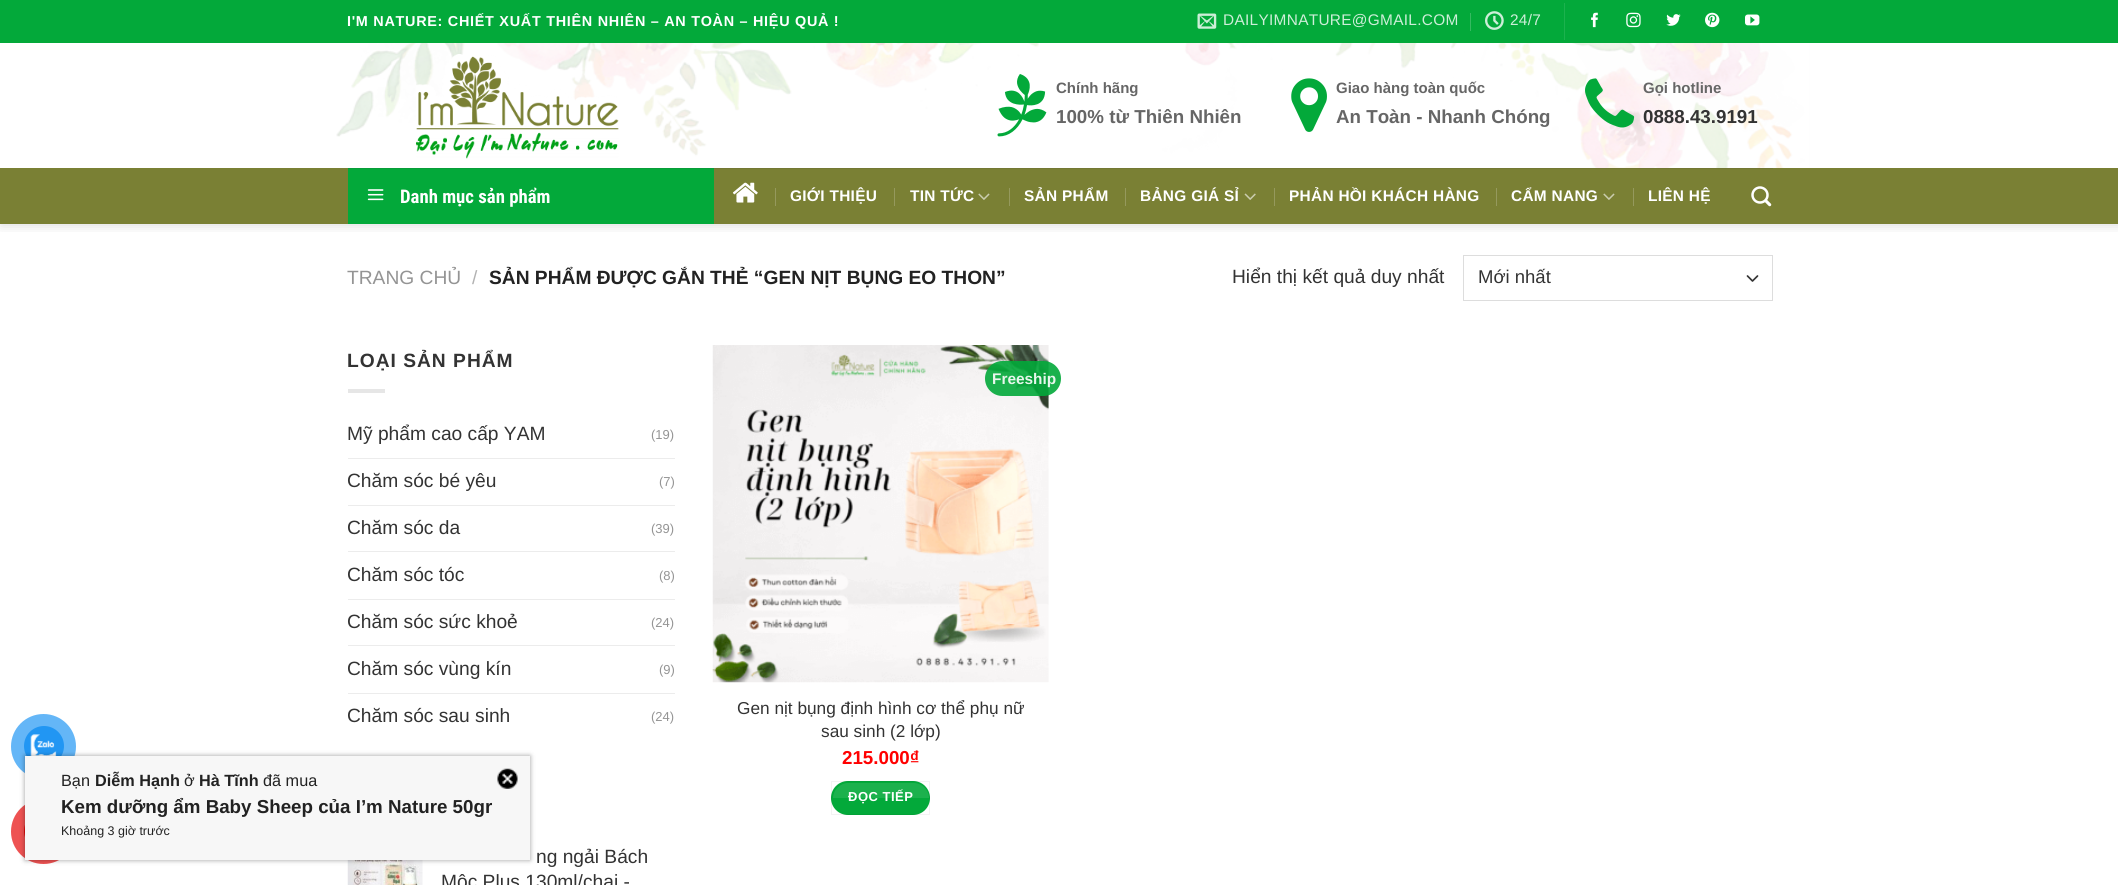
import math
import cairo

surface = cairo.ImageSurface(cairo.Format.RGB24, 2118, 885)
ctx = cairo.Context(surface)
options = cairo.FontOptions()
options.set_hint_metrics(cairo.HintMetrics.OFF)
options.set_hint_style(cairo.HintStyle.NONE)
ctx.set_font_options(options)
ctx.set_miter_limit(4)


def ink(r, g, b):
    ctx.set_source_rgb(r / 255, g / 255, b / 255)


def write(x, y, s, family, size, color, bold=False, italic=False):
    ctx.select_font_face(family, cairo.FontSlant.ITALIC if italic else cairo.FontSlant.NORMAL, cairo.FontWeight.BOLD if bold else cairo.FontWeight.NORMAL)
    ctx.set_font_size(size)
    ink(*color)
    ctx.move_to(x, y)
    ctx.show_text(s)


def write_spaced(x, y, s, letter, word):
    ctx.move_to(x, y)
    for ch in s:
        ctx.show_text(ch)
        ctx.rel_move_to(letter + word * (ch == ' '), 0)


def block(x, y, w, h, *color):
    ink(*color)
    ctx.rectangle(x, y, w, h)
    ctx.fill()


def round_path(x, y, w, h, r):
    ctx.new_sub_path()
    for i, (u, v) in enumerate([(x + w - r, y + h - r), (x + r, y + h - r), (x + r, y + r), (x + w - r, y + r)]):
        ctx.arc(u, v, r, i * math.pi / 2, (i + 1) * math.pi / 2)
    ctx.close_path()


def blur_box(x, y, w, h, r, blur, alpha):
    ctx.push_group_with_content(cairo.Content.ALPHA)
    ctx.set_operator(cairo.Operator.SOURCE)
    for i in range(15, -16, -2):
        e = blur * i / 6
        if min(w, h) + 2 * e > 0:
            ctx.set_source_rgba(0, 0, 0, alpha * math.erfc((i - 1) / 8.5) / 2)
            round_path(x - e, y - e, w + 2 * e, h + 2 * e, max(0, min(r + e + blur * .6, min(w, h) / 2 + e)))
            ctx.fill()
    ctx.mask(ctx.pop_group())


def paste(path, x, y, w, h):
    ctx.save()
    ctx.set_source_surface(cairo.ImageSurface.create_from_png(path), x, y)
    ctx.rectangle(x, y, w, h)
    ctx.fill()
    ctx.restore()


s1 = dict(family="Liberation Sans", size=16.25, color=(34, 34, 34))
s2 = dict(family="Liberation Sans", size=16.25, color=(34, 34, 34), bold=True)
s3 = dict(family="Liberation Sans", size=18.75, color=(34, 34, 34), bold=True)
s4 = dict(family="Liberation Sans", size=12.5, color=(34, 34, 34))
s5 = dict(family="Liberation Sans", size=15, color=(102, 102, 102), bold=True)
s6 = dict(family="Liberation Sans", size=18.75, color=(102, 102, 102), bold=True)
s7 = dict(family="Liberation Sans", size=18.75, color=(51, 51, 51), bold=True)
s8 = dict(family="Roboto Condensed", size=18.75, color=(255, 255, 255), bold=True)
s9 = dict(family="Liberation Sans", size=19.2, color=(148, 148, 148))
s10 = dict(family="Liberation Sans", size=19.2, color=(178, 178, 178))
s11 = dict(family="Liberation Sans", size=19.2, color=(34, 34, 34), bold=True)
s12 = dict(family="Liberation Sans", size=19.2, color=(51, 51, 51))
s13 = dict(family="Liberation Sans", size=18.5, color=(51, 51, 51))
s14 = dict(family="Liberation Sans", size=13, color=(148, 148, 148))
s15 = dict(family="Liberation Sans", size=15.4, color=(231, 246, 236), bold=True)
s16 = dict(family="Liberation Sans", size=17.25, color=(51, 51, 51))
s17 = dict(family="Liberation Sans", size=18.75, color=(255, 0, 0), bold=True)

ink(255, 255, 255)
ctx.paint()
ink(100, 182, 247)
ctx.arc(43.5, 746.5, 32.5, 0, 2 * math.pi)
ctx.fill()
ink(33, 150, 243)
ctx.arc(44, 746, 20, 0, 2 * math.pi)
ctx.fill()
paste("pic1.png", 30, 734, 27, 22)
ink(238, 82, 82)
ctx.arc(43.5, 831.5, 32.5, 0, 2 * math.pi)
ctx.fill()
ink(230, 8, 8)
ctx.arc(44, 831, 20, 0, 2 * math.pi)
ctx.fill()
paste("pic20.png", 347, 860, 76, 25)
ink(0, 0, 0)
blur_box(25, 756, 505, 104, 0, 2.5, 0.4)
block(25, 756, 505, 104, 247, 247, 247)
write(61, 786, "Bạn", **s1)
write(95, 786, "Diễm Hạnh", **s2)
write(184, 786, "ở", **s1)
write(199, 786, "Hà Tĩnh", **s2)
write(263, 786, "đã mua", **s1)
write(61, 813, "Kem dưỡng ẩm Baby Sheep của I’m Nature 50gr", **s3)
write(61, 835, "Khoảng 3 giờ trước", **s4)
paste("pic2.png", 497, 768, 21, 21)
ctx.save()
ctx.rectangle(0, 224, 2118, 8)
ctx.clip()
ink(0, 0, 0)
blur_box(1, 1, 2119, 224, 0, 6, 0.15)
ctx.restore()
block(0, 0, 2118, 43, 3, 169, 58)
ctx.select_font_face("Liberation Sans", cairo.FontSlant.NORMAL, cairo.FontWeight.BOLD)
ctx.set_font_size(14.4)
ink(255, 255, 255)
write_spaced(347, 26, "I'M NATURE: CHIẾT XUẤT THIÊN NHIÊN – AN TOÀN – HIỆU QUẢ !", 0.72, 0)
paste("pic3.png", 1197, 13, 20, 16)
ctx.select_font_face("Liberation Sans")
ctx.set_font_size(15.4)
ink(205, 238, 216)
write_spaced(1223, 25, "DAILYIMNATURE@GMAIL.COM", 0.3, 0)
block(1470, 13, 1, 18, 53, 186, 97)
paste("pic4.png", 1485, 11, 19, 19)
ink(205, 238, 216)
write_spaced(1510, 25, "24/7", 0.3, 0)
block(1564, 3, 1, 37, 28, 178, 78)
paste("pic5.png", 1591, 12, 7, 16)
paste("pic6.png", 1626, 12, 15, 16)
paste("pic7.png", 1666, 14, 15, 12)
paste("pic8.png", 1705, 12, 15, 16)
paste("pic9.png", 1745, 14, 15, 12)
paste("pic10.png", 313, 43, 1497, 125)
ctx.set_source_rgba(1, 1, 1, 0.86)
ctx.rectangle(336, 43, 1474, 125)
ctx.fill()
paste("pic11.png", 416, 54, 203, 105)
paste("pic12.png", 997, 74, 50, 63)
write(1056, 93, "Chính hãng", **s5)
write(1056, 123, "100% từ Thiên Nhiên", **s6)
paste("pic13.png", 1291, 78, 36, 54)
write(1336, 93, "Giao hàng toàn quốc", **s5)
write(1336, 123, "An Toàn - Nhanh Chóng", **s6)
paste("pic14.png", 1585, 78, 50, 50)
write(1643, 93, "Gọi hotline", **s5)
write(1643, 123, "0888.43.9191", **s7)
block(0, 168, 2118, 56, 122, 128, 52)
block(348, 168, 366, 56, 3, 169, 58)
ctx.set_source_rgba(0.2, 0.2, 0.2, 0.1)
ctx.rectangle(348, 168, 1425, 1)
ctx.fill()
paste("pic15.png", 367, 189, 17, 12)
write(400, 203, "Danh mục sản phẩm", **s8)
paste("pic16.png", 732, 182, 26, 21)
block(775, 188, 1, 18, 149, 153, 93)
ctx.select_font_face("Liberation Sans", cairo.FontSlant.NORMAL, cairo.FontWeight.BOLD)
ctx.set_font_size(15.4)
ink(255, 255, 255)
write_spaced(790, 201, "GIỚI THIỆU", 0.3, 0)
block(894, 188, 1, 18, 149, 153, 93)
ink(255, 255, 255)
write_spaced(910, 201, "TIN TỨC", 0.3, 0)
paste("pic17.png", 978, 193, 12, 7)
block(1009, 188, 1, 18, 149, 153, 93)
ink(255, 255, 255)
write_spaced(1024, 201, "SẢN PHẨM", 0.3, 0)
block(1125, 188, 1, 18, 149, 153, 93)
ink(255, 255, 255)
write_spaced(1140, 201, "BẢNG GIÁ SỈ", 0.3, 0)
paste("pic18.png", 1244, 193, 12, 7)
block(1274, 188, 1, 18, 149, 153, 93)
ink(255, 255, 255)
write_spaced(1289, 201, "PHẢN HỒI KHÁCH HÀNG", 0.3, 0)
block(1496, 188, 1, 18, 149, 153, 93)
ink(255, 255, 255)
write_spaced(1511, 201, "CẨM NANG", 0.3, 0)
paste("pic17.png", 1603, 193, 12, 7)
block(1633, 188, 1, 18, 149, 153, 93)
ink(255, 255, 255)
write_spaced(1648, 201, "LIÊN HỆ", 0.3, 0)
paste("pic19.png", 1751, 186, 21, 21)
write(347, 284, "TRANG CHỦ", **s9)
write(472, 284, "/", **s10)
write(489, 284, "SẢN PHẨM ĐƯỢC GẮN THẺ “GEN NỊT BỤNG EO THON”", **s11)
write(1232, 283, "Hiển thị kết quả duy nhất", **s12)
ctx.new_path()
ctx.move_to(1747.5, 276)
ctx.line_to(1752.5, 281)
ctx.line_to(1757.5, 276)
ctx.set_line_width(1.7)
ctx.set_line_cap(cairo.LineCap.ROUND)
ctx.set_line_join(cairo.LineJoin.ROUND)
ctx.stroke()
ctx.rectangle(1463.5, 255.5, 309, 45)
ink(221, 221, 221)
ctx.set_line_width(1)
ctx.set_line_cap(cairo.LineCap.BUTT)
ctx.set_line_join(cairo.LineJoin.MITER)
ctx.stroke()
write(1478, 283, "Mới nhất", **s13)
ctx.select_font_face("Liberation Sans", cairo.FontSlant.NORMAL, cairo.FontWeight.BOLD)
ctx.set_font_size(19.2)
write_spaced(347, 367, "LOẠI SẢN PHẨM", 1, 0)
block(348, 389, 37, 4, 230, 230, 230)
write(347, 440, "Mỹ phẩm cao cấp YAM", **s12)
write(651, 439, "(19)", **s14)
block(348, 458, 327, 1, 236, 236, 236)
write(347, 487, "Chăm sóc bé yêu", **s12)
write(659, 486, "(7)", **s14)
block(348, 505, 327, 1, 236, 236, 236)
write(347, 534, "Chăm sóc da", **s12)
write(651, 533, "(39)", **s14)
block(348, 551, 327, 1, 236, 236, 236)
write(347, 581, "Chăm sóc tóc", **s12)
write(659, 580, "(8)", **s14)
block(348, 599, 327, 1, 236, 236, 236)
write(347, 628, "Chăm sóc sức khoẻ", **s12)
write(651, 627, "(24)", **s14)
block(348, 645, 327, 1, 236, 236, 236)
write(347, 675, "Chăm sóc vùng kín", **s12)
write(659, 674, "(9)", **s14)
block(348, 693, 327, 1, 236, 236, 236)
write(347, 722, "Chăm sóc sau sinh", **s12)
write(651, 721, "(24)", **s14)
write(536, 863, "ng ngải Bách", **s12)
write(441, 888, "Mộc Plus 130ml/chai -", **s12)
paste("pic21.png", 712, 345, 337, 338)
ctx.set_source_rgba(0.012, 0.663, 0.227, 0.9)
round_path(985, 361, 76, 35, 17.5)
ctx.fill()
write(992, 384, "Freeship", **s15)
write(737, 714, "Gen nịt bụng định hình cơ thể phụ nữ", **s16)
write(821, 737, "sau sinh (2 lớp)", **s16)
write(842, 764, "215.000₫", **s17)
ink(3, 169, 58)
round_path(831, 781, 99, 34, 17)
ctx.fill()
ctx.rectangle(831.5, 781.5, 98, 33)
ctx.set_source_rgba(0, 0, 0, 0.05)
ctx.stroke()
ctx.save()
round_path(833, 783, 96, 31, 15.5)
ctx.clip()
ctx.set_source_rgba(1, 1, 1, 0.1)
ctx.rectangle(833, 783, 96, 15)
ctx.fill()
ctx.restore()
ctx.set_font_size(13)
ink(255, 255, 255)
write_spaced(848, 801, "ĐỌC TIẾP", 0.5, 0)
surface.write_to_png("screenshot.png")
